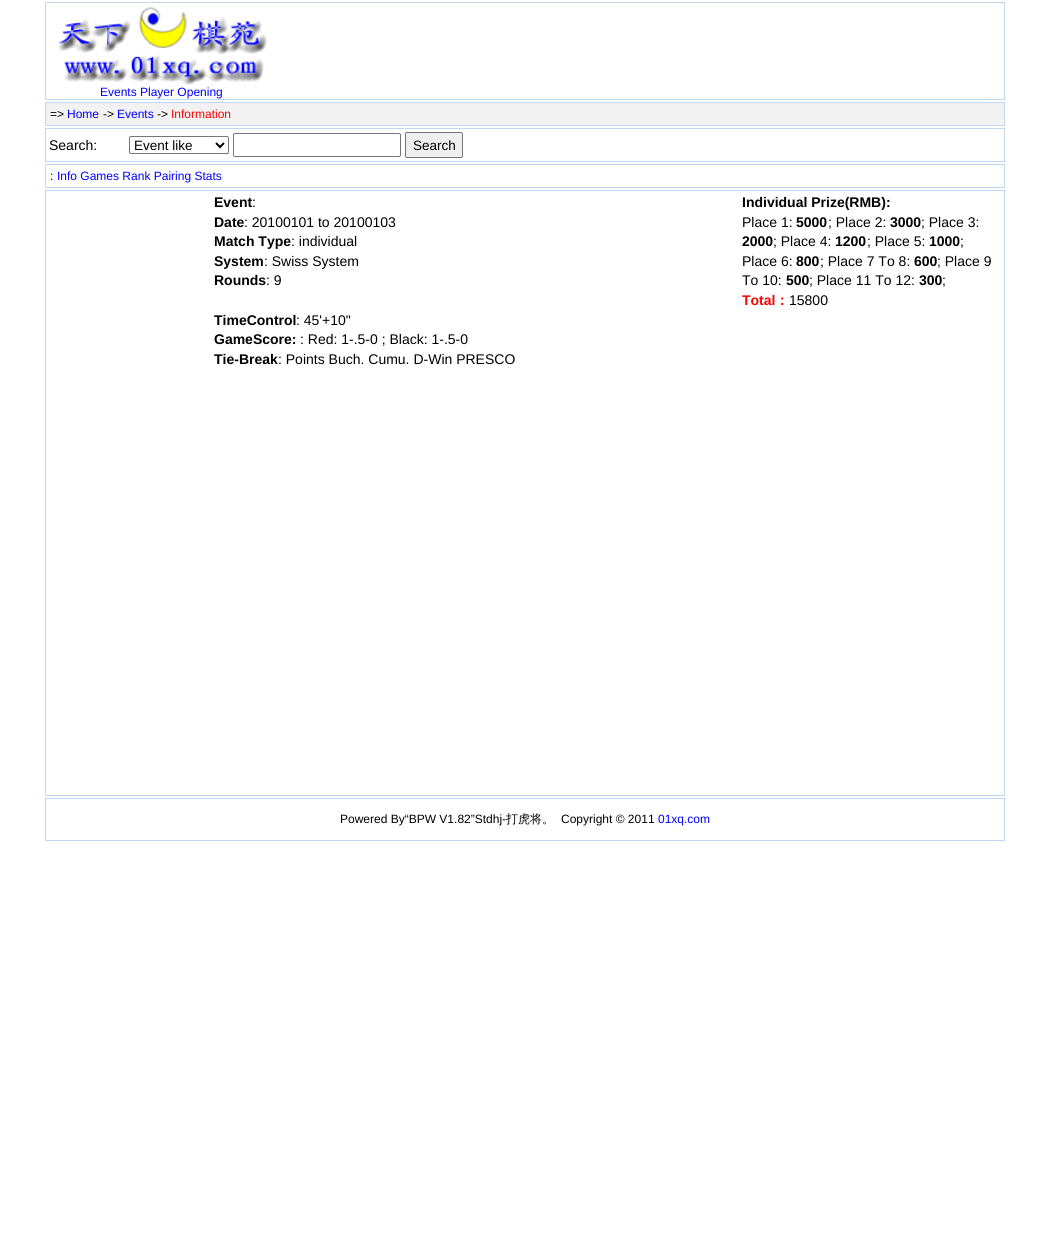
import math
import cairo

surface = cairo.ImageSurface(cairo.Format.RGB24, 1050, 1259)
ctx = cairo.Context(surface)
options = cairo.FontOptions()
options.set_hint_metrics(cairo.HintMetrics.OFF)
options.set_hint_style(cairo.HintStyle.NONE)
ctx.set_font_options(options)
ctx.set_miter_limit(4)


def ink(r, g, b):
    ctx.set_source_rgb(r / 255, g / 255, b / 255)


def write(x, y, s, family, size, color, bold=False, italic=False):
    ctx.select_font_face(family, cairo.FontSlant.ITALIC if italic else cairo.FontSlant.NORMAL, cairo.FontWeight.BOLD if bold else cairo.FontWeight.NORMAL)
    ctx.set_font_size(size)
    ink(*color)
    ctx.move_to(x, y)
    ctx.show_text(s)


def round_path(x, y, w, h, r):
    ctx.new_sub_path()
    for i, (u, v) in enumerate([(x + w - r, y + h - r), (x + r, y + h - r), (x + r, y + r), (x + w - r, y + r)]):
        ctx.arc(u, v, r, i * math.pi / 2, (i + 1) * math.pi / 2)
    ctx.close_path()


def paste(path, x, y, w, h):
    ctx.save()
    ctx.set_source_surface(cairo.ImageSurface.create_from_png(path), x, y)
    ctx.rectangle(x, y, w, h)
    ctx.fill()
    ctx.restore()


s1 = dict(family="Liberation Sans", size=12, color=(0, 0, 255))
s2 = dict(family="Liberation Sans", size=12, color=(0, 0, 0))
s3 = dict(family="Liberation Sans", size=12, color=(255, 0, 0))
s4 = dict(family="Liberation Sans", size=14, color=(0, 0, 0))
s5 = dict(family="Liberation Sans", size=13.5, color=(0, 0, 0))
s6 = dict(family="Liberation Sans", size=14, color=(0, 0, 0), bold=True)
s7 = dict(family="Liberation Sans", size=14, color=(255, 0, 0), bold=True)
s8 = dict(family="WenQuanYi Zen Hei", size=14, color=(255, 0, 0), bold=True)
s9 = dict(family="WenQuanYi Zen Hei Medium", size=12, color=(0, 0, 0))

ink(255, 255, 255)
ctx.paint()
ctx.rectangle(45.5, 2.5, 959, 97)
ink(193, 214, 240)
ctx.set_line_width(1)
ctx.stroke()
paste("pic1.png", 58, 7, 209, 78)
write(100, 96, "Events Player Opening", **s1)
ink(242, 242, 242)
ctx.rectangle(45.5, 102.5, 959, 23)
ctx.fill_preserve()
ink(193, 214, 240)
ctx.stroke()
write(50, 118, "=>", **s2)
write(67, 118, "Home", **s1)
write(103, 118, "->", **s2)
write(117, 118, "Events", **s1)
write(157, 118, "->", **s2)
write(171, 118, "Information", **s3)
ctx.rectangle(45.5, 128.5, 959, 33)
ink(193, 214, 240)
ctx.stroke()
write(49, 150, "Search:", **s4)
round_path(129.5, 136.5, 99, 17, 1.5)
ink(118, 118, 118)
ctx.stroke()
ctx.new_path()
ctx.move_to(216, 143)
ctx.line_to(220, 147)
ctx.line_to(224, 143)
ink(0, 0, 0)
ctx.set_line_width(2)
ctx.stroke()
write(134, 150, "Event like", **s5)
round_path(233.5, 133.5, 167, 23, 1.5)
ink(118, 118, 118)
ctx.set_line_width(1)
ctx.stroke()
ink(239, 239, 239)
round_path(405.5, 132.5, 57, 25, 1.5)
ctx.fill_preserve()
ink(118, 118, 118)
ctx.stroke()
write(413, 150, "Search", **s5)
ctx.rectangle(45.5, 164.5, 959, 23)
ink(193, 214, 240)
ctx.stroke()
write(50, 180, ":", **s2)
write(57, 180, "Info Games Rank Pairing Stats", **s1)
ctx.rectangle(45.5, 190.5, 959, 605)
ink(193, 214, 240)
ctx.stroke()
write(214, 207, "Event", **s6)
write(252, 207, ":", **s4)
write(214, 227, "Date", **s6)
write(244, 227, ": 20100101 to 20100103", **s4)
write(214, 246, "Match Type", **s6)
write(291, 246, ": individual", **s4)
write(214, 266, "System", **s6)
write(264, 266, ": Swiss System", **s4)
write(214, 285, "Rounds", **s6)
write(266, 285, ": 9", **s4)
write(214, 325, "TimeControl", **s6)
write(296, 325, ": 45'+10\"", **s4)
write(214, 344, "GameScore:", **s6)
write(300, 344, ": Red: 1-.5-0 ; Black: 1-.5-0", **s4)
write(214, 364, "Tie-Break", **s6)
write(278, 364, ": Points Buch. Cumu. D-Win PRESCO", **s4)
write(742, 207, "Individual Prize(RMB):", **s6)
write(742, 227, "Place 1:", **s4)
write(796, 227, "5000", **s6)
write(828, 227, "; Place 2:", **s4)
write(890, 227, "3000", **s6)
write(921, 227, "; Place 3:", **s4)
write(742, 246, "2000", **s6)
write(773, 246, "; Place 4:", **s4)
write(835, 246, "1200", **s6)
write(867, 246, "; Place 5:", **s4)
write(929, 246, "1000", **s6)
write(960, 246, ";", **s4)
write(742, 266, "Place 6:", **s4)
write(796, 266, "800", **s6)
write(820, 266, "; Place 7 To 8:", **s4)
write(914, 266, "600", **s6)
write(937, 266, "; Place 9", **s4)
write(742, 285, "To 10:", **s4)
write(786, 285, "500", **s6)
write(809, 285, "; Place 11 To 12:", **s4)
write(919, 285, "300", **s6)
write(942, 285, ";", **s4)
write(742, 305, "Total", **s7)
write(775, 305, "：", **s8)
write(789, 305, "15800", **s4)
ctx.rectangle(45.5, 798.5, 959, 42)
ink(193, 214, 240)
ctx.stroke()
write(340, 823, "Powered By“BPW V1.82”Stdhj-", **s2)
write(506, 823, "打虎将。", **s9)
write(561, 823, "Copyright © 2011", **s2)
write(658, 823, "01xq.com", **s1)
surface.write_to_png("screenshot.png")
